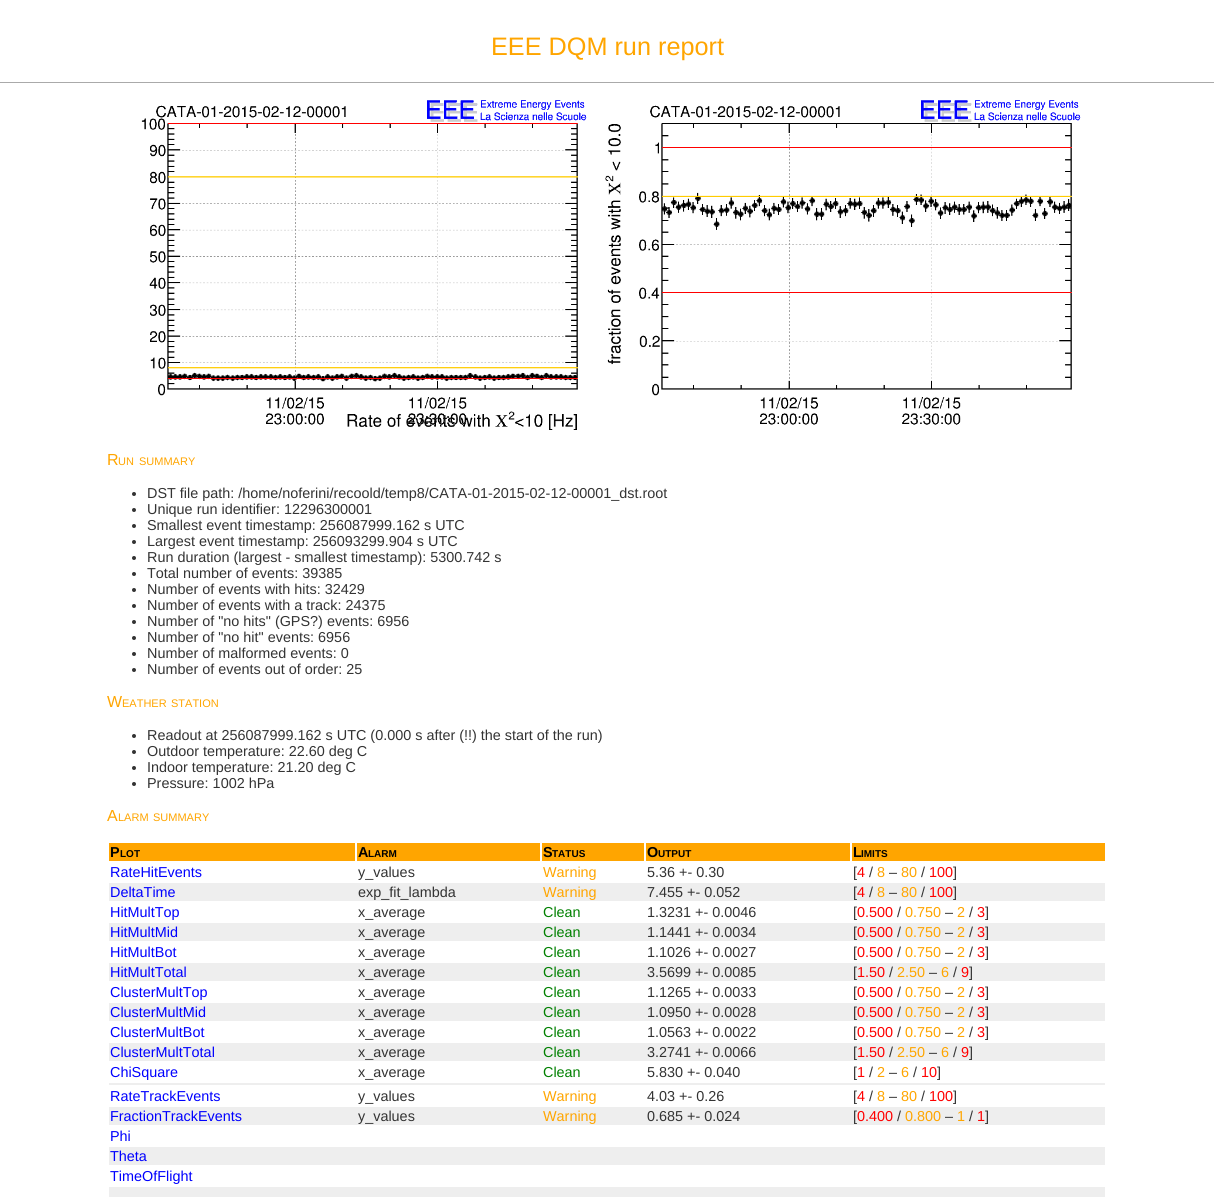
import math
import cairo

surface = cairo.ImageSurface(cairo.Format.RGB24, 1214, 1197)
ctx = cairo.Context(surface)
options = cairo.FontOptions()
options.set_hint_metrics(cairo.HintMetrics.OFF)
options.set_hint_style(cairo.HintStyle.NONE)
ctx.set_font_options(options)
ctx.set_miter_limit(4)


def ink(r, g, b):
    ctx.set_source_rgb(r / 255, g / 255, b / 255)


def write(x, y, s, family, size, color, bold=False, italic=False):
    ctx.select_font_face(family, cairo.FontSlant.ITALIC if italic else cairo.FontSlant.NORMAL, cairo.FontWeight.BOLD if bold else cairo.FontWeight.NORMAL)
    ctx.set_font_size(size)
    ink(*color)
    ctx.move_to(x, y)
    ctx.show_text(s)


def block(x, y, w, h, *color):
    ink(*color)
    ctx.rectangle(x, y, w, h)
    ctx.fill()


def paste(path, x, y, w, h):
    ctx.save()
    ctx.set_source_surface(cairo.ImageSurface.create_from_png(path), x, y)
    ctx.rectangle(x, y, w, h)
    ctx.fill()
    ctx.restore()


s1 = dict(family="Liberation Sans", size=25.25, color=(255, 165, 0))
s2 = dict(family="Liberation Sans", size=16, color=(255, 165, 0))
s3 = dict(family="Liberation Sans", size=11, color=(255, 165, 0))
s4 = dict(family="Liberation Sans", size=14.4, color=(51, 51, 51))
s5 = dict(family="Liberation Sans", size=14.4, color=(0, 0, 0), bold=True)
s6 = dict(family="Liberation Sans", size=10, color=(0, 0, 0), bold=True)
s7 = dict(family="Liberation Sans", size=14.4, color=(0, 0, 255))
s8 = dict(family="Liberation Sans", size=14.4, color=(255, 165, 0))
s9 = dict(family="Liberation Sans", size=14.4, color=(255, 0, 0))
s10 = dict(family="Liberation Sans", size=14.4, color=(0, 128, 0))

ink(255, 255, 255)
ctx.paint()
block(0, 82, 1214, 1, 170, 170, 170)
write(491, 55, "EEE DQM run report", **s1)
paste("pic1.png", 141, 100, 446, 330)
paste("pic2.png", 605, 100, 476, 325)
write(107, 465, "R", **s2)
write(118, 465, "UN", **s3)
write(139, 465, "SUMMARY", **s3)
ink(51, 51, 51)
ctx.new_path()
ctx.arc(134, 494, 2, 0, 2 * math.pi)
ctx.fill()
write(147, 498, "DST file path: /home/noferini/recoold/temp8/CATA-01-2015-02-12-00001_dst.root", **s4)
ctx.new_path()
ctx.arc(134, 510, 2, 0, 2 * math.pi)
ctx.fill()
write(147, 514, "Unique run identifier: 12296300001", **s4)
ctx.new_path()
ctx.arc(134, 526, 2, 0, 2 * math.pi)
ctx.fill()
write(147, 530, "Smallest event timestamp: 256087999.162 s UTC", **s4)
ctx.new_path()
ctx.arc(134, 542, 2, 0, 2 * math.pi)
ctx.fill()
write(147, 546, "Largest event timestamp: 256093299.904 s UTC", **s4)
ctx.new_path()
ctx.arc(134, 558, 2, 0, 2 * math.pi)
ctx.fill()
write(147, 562, "Run duration (largest - smallest timestamp): 5300.742 s", **s4)
ctx.new_path()
ctx.arc(134, 574, 2, 0, 2 * math.pi)
ctx.fill()
write(147, 578, "Total number of events: 39385", **s4)
ctx.new_path()
ctx.arc(134, 590, 2, 0, 2 * math.pi)
ctx.fill()
write(147, 594, "Number of events with hits: 32429", **s4)
ctx.new_path()
ctx.arc(134, 606, 2, 0, 2 * math.pi)
ctx.fill()
write(147, 610, "Number of events with a track: 24375", **s4)
ctx.new_path()
ctx.arc(134, 622, 2, 0, 2 * math.pi)
ctx.fill()
write(147, 626, "Number of \"no hits\" (GPS?) events: 6956", **s4)
ctx.new_path()
ctx.arc(134, 638, 2, 0, 2 * math.pi)
ctx.fill()
write(147, 642, "Number of \"no hit\" events: 6956", **s4)
ctx.new_path()
ctx.arc(134, 654, 2, 0, 2 * math.pi)
ctx.fill()
write(147, 658, "Number of malformed events: 0", **s4)
ctx.new_path()
ctx.arc(134, 670, 2, 0, 2 * math.pi)
ctx.fill()
write(147, 674, "Number of events out of order: 25", **s4)
write(107, 707, "W", **s2)
write(122, 707, "EATHER", **s3)
write(171, 707, "STATION", **s3)
ink(51, 51, 51)
ctx.new_path()
ctx.arc(134, 736, 2, 0, 2 * math.pi)
ctx.fill()
write(147, 740, "Readout at 256087999.162 s UTC (0.000 s after (!!) the start of the run)", **s4)
ctx.new_path()
ctx.arc(134, 752, 2, 0, 2 * math.pi)
ctx.fill()
write(147, 756, "Outdoor temperature: 22.60 deg C", **s4)
ctx.new_path()
ctx.arc(134, 768, 2, 0, 2 * math.pi)
ctx.fill()
write(147, 772, "Indoor temperature: 21.20 deg C", **s4)
ctx.new_path()
ctx.arc(134, 784, 2, 0, 2 * math.pi)
ctx.fill()
write(147, 788, "Pressure: 1002 hPa", **s4)
write(107, 821, "A", **s2)
write(118, 821, "LARM", **s3)
write(153, 821, "SUMMARY", **s3)
block(109, 843, 246, 18, 255, 165, 0)
write(110, 857, "P", **s5)
write(120, 857, "LOT", **s6)
block(357, 843, 183, 18, 255, 165, 0)
write(358, 857, "A", **s5)
write(368, 857, "LARM", **s6)
block(542, 843, 102, 18, 255, 165, 0)
write(543, 857, "S", **s5)
write(552, 857, "TATUS", **s6)
block(646, 843, 204, 18, 255, 165, 0)
write(647, 857, "O", **s5)
write(658, 857, "UTPUT", **s6)
block(852, 843, 253, 18, 255, 165, 0)
write(853, 857, "L", **s5)
write(861, 857, "IMITS", **s6)
write(110, 877, "RateHitEvents", **s7)
write(358, 877, "y_values", **s4)
write(543, 877, "Warning", **s8)
write(647, 877, "5.36 +- 0.30", **s4)
write(853, 877, "[", **s4)
write(857, 877, "4", **s9)
write(869, 877, "/", **s4)
write(877, 877, "8", **s8)
write(889, 877, "–", **s4)
write(901, 877, "80", **s8)
write(921, 877, "/", **s4)
write(929, 877, "100", **s9)
write(953, 877, "]", **s4)
block(109, 883, 996, 18, 238, 238, 238)
write(110, 897, "DeltaTime", **s7)
write(358, 897, "exp_fit_lambda", **s4)
write(543, 897, "Warning", **s8)
write(647, 897, "7.455 +- 0.052", **s4)
write(853, 897, "[", **s4)
write(857, 897, "4", **s9)
write(869, 897, "/", **s4)
write(877, 897, "8", **s8)
write(889, 897, "–", **s4)
write(901, 897, "80", **s8)
write(921, 897, "/", **s4)
write(929, 897, "100", **s9)
write(953, 897, "]", **s4)
write(110, 917, "HitMultTop", **s7)
write(358, 917, "x_average", **s4)
write(543, 917, "Clean", **s10)
write(647, 917, "1.3231 +- 0.0046", **s4)
write(853, 917, "[", **s4)
write(857, 917, "0.500", **s9)
write(897, 917, "/", **s4)
write(905, 917, "0.750", **s8)
write(945, 917, "–", **s4)
write(957, 917, "2", **s8)
write(969, 917, "/", **s4)
write(977, 917, "3", **s9)
write(985, 917, "]", **s4)
block(109, 923, 996, 18, 238, 238, 238)
write(110, 937, "HitMultMid", **s7)
write(358, 937, "x_average", **s4)
write(543, 937, "Clean", **s10)
write(647, 937, "1.1441 +- 0.0034", **s4)
write(853, 937, "[", **s4)
write(857, 937, "0.500", **s9)
write(897, 937, "/", **s4)
write(905, 937, "0.750", **s8)
write(945, 937, "–", **s4)
write(957, 937, "2", **s8)
write(969, 937, "/", **s4)
write(977, 937, "3", **s9)
write(985, 937, "]", **s4)
write(110, 957, "HitMultBot", **s7)
write(358, 957, "x_average", **s4)
write(543, 957, "Clean", **s10)
write(647, 957, "1.1026 +- 0.0027", **s4)
write(853, 957, "[", **s4)
write(857, 957, "0.500", **s9)
write(897, 957, "/", **s4)
write(905, 957, "0.750", **s8)
write(945, 957, "–", **s4)
write(957, 957, "2", **s8)
write(969, 957, "/", **s4)
write(977, 957, "3", **s9)
write(985, 957, "]", **s4)
block(109, 963, 996, 18, 238, 238, 238)
write(110, 977, "HitMultTotal", **s7)
write(358, 977, "x_average", **s4)
write(543, 977, "Clean", **s10)
write(647, 977, "3.5699 +- 0.0085", **s4)
write(853, 977, "[", **s4)
write(857, 977, "1.50", **s9)
write(889, 977, "/", **s4)
write(897, 977, "2.50", **s8)
write(929, 977, "–", **s4)
write(941, 977, "6", **s8)
write(953, 977, "/", **s4)
write(961, 977, "9", **s9)
write(969, 977, "]", **s4)
write(110, 997, "ClusterMultTop", **s7)
write(358, 997, "x_average", **s4)
write(543, 997, "Clean", **s10)
write(647, 997, "1.1265 +- 0.0033", **s4)
write(853, 997, "[", **s4)
write(857, 997, "0.500", **s9)
write(897, 997, "/", **s4)
write(905, 997, "0.750", **s8)
write(945, 997, "–", **s4)
write(957, 997, "2", **s8)
write(969, 997, "/", **s4)
write(977, 997, "3", **s9)
write(985, 997, "]", **s4)
block(109, 1003, 996, 18, 238, 238, 238)
write(110, 1017, "ClusterMultMid", **s7)
write(358, 1017, "x_average", **s4)
write(543, 1017, "Clean", **s10)
write(647, 1017, "1.0950 +- 0.0028", **s4)
write(853, 1017, "[", **s4)
write(857, 1017, "0.500", **s9)
write(897, 1017, "/", **s4)
write(905, 1017, "0.750", **s8)
write(945, 1017, "–", **s4)
write(957, 1017, "2", **s8)
write(969, 1017, "/", **s4)
write(977, 1017, "3", **s9)
write(985, 1017, "]", **s4)
write(110, 1037, "ClusterMultBot", **s7)
write(358, 1037, "x_average", **s4)
write(543, 1037, "Clean", **s10)
write(647, 1037, "1.0563 +- 0.0022", **s4)
write(853, 1037, "[", **s4)
write(857, 1037, "0.500", **s9)
write(897, 1037, "/", **s4)
write(905, 1037, "0.750", **s8)
write(945, 1037, "–", **s4)
write(957, 1037, "2", **s8)
write(969, 1037, "/", **s4)
write(977, 1037, "3", **s9)
write(985, 1037, "]", **s4)
block(109, 1043, 996, 18, 238, 238, 238)
write(110, 1057, "ClusterMultTotal", **s7)
write(358, 1057, "x_average", **s4)
write(543, 1057, "Clean", **s10)
write(647, 1057, "3.2741 +- 0.0066", **s4)
write(853, 1057, "[", **s4)
write(857, 1057, "1.50", **s9)
write(889, 1057, "/", **s4)
write(897, 1057, "2.50", **s8)
write(929, 1057, "–", **s4)
write(941, 1057, "6", **s8)
write(953, 1057, "/", **s4)
write(961, 1057, "9", **s9)
write(969, 1057, "]", **s4)
write(110, 1077, "ChiSquare", **s7)
write(358, 1077, "x_average", **s4)
write(543, 1077, "Clean", **s10)
write(647, 1077, "5.830 +- 0.040", **s4)
write(853, 1077, "[", **s4)
write(857, 1077, "1", **s9)
write(869, 1077, "/", **s4)
write(877, 1077, "2", **s8)
write(889, 1077, "–", **s4)
write(901, 1077, "6", **s8)
write(913, 1077, "/", **s4)
write(921, 1077, "10", **s9)
write(937, 1077, "]", **s4)
block(109, 1083, 996, 2, 238, 238, 238)
write(110, 1101, "RateTrackEvents", **s7)
write(358, 1101, "y_values", **s4)
write(543, 1101, "Warning", **s8)
write(647, 1101, "4.03 +- 0.26", **s4)
write(853, 1101, "[", **s4)
write(857, 1101, "4", **s9)
write(869, 1101, "/", **s4)
write(877, 1101, "8", **s8)
write(889, 1101, "–", **s4)
write(901, 1101, "80", **s8)
write(921, 1101, "/", **s4)
write(929, 1101, "100", **s9)
write(953, 1101, "]", **s4)
block(109, 1107, 996, 18, 238, 238, 238)
write(110, 1121, "FractionTrackEvents", **s7)
write(358, 1121, "y_values", **s4)
write(543, 1121, "Warning", **s8)
write(647, 1121, "0.685 +- 0.024", **s4)
write(853, 1121, "[", **s4)
write(857, 1121, "0.400", **s9)
write(897, 1121, "/", **s4)
write(905, 1121, "0.800", **s8)
write(945, 1121, "–", **s4)
write(957, 1121, "1", **s8)
write(969, 1121, "/", **s4)
write(977, 1121, "1", **s9)
write(985, 1121, "]", **s4)
write(110, 1141, "Phi", **s7)
block(109, 1147, 996, 18, 238, 238, 238)
write(110, 1161, "Theta", **s7)
write(110, 1181, "TimeOfFlight", **s7)
block(109, 1187, 996, 10, 238, 238, 238)
surface.write_to_png("screenshot.png")
